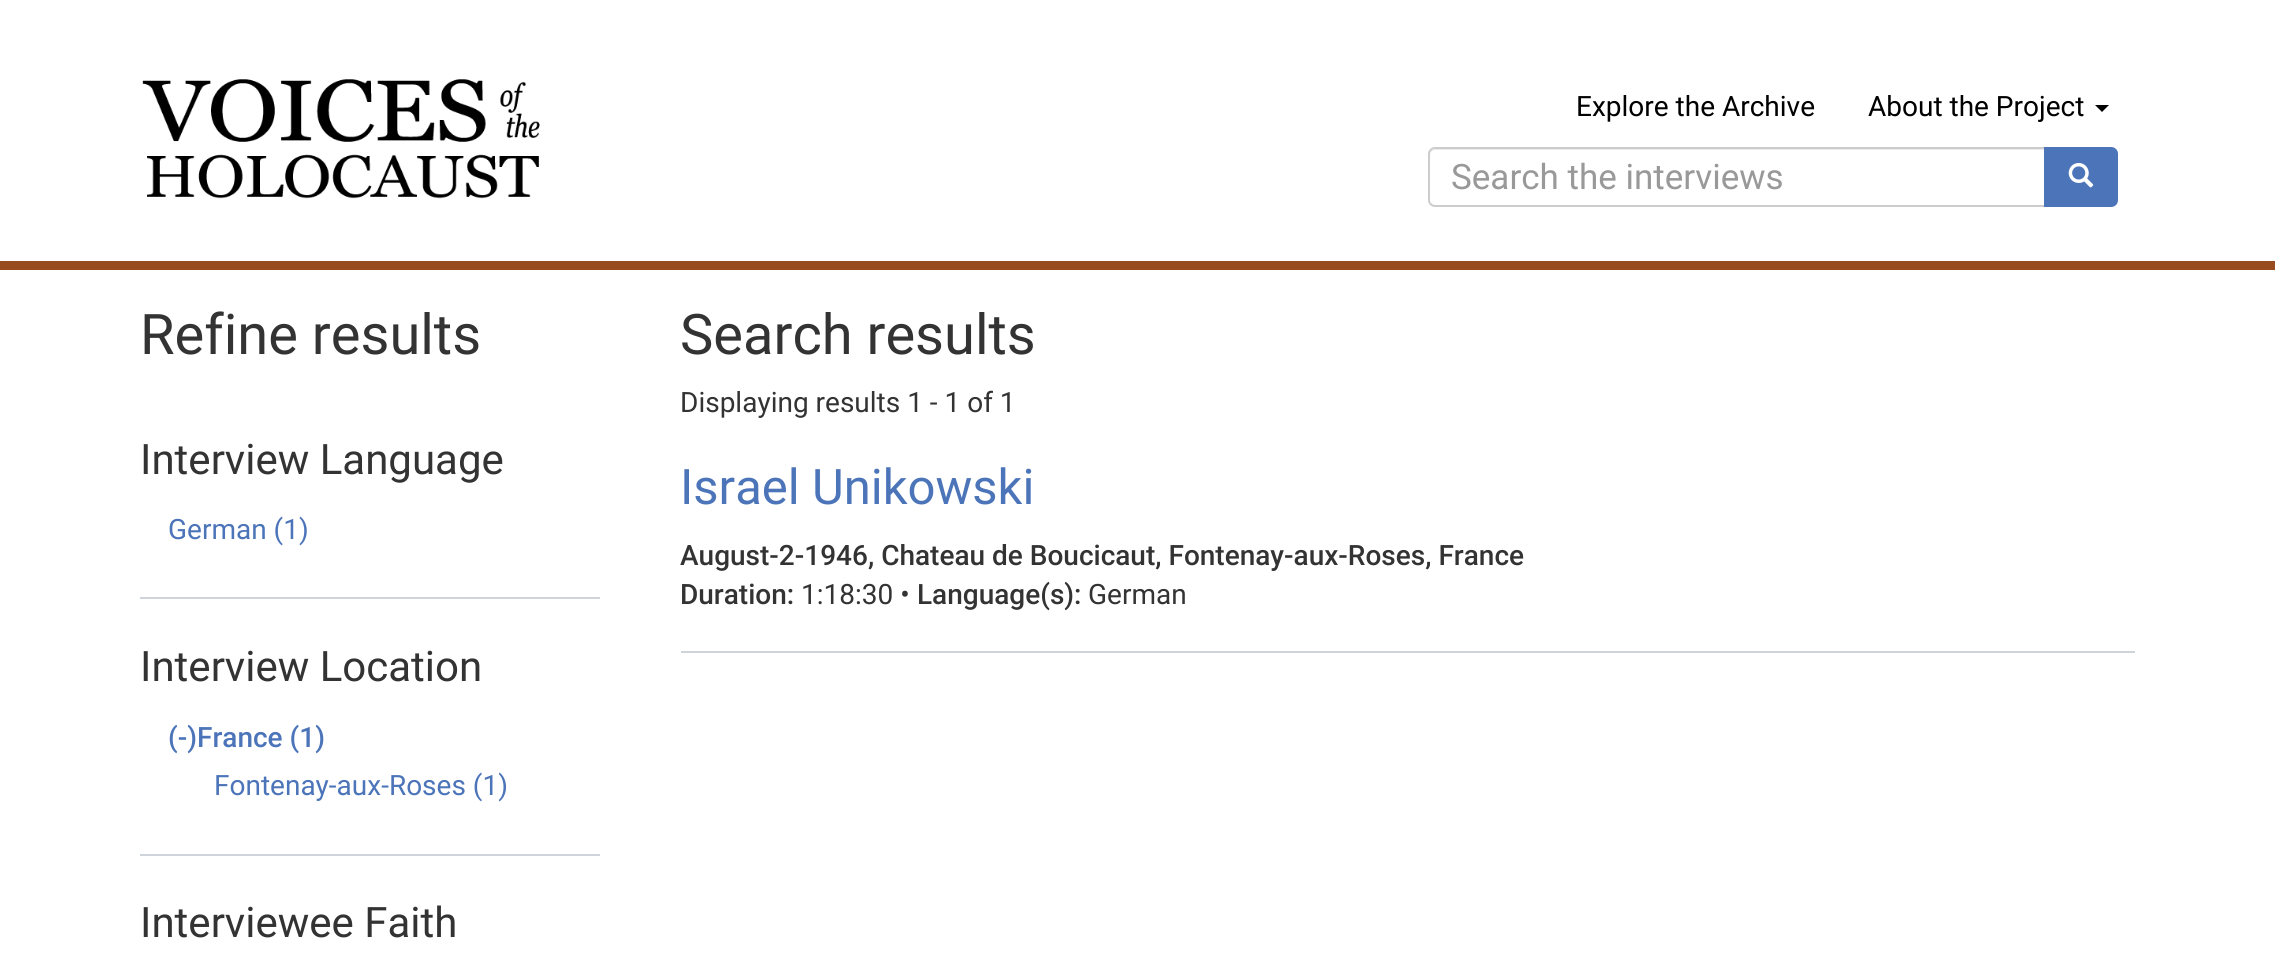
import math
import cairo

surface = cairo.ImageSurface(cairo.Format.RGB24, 2275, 955)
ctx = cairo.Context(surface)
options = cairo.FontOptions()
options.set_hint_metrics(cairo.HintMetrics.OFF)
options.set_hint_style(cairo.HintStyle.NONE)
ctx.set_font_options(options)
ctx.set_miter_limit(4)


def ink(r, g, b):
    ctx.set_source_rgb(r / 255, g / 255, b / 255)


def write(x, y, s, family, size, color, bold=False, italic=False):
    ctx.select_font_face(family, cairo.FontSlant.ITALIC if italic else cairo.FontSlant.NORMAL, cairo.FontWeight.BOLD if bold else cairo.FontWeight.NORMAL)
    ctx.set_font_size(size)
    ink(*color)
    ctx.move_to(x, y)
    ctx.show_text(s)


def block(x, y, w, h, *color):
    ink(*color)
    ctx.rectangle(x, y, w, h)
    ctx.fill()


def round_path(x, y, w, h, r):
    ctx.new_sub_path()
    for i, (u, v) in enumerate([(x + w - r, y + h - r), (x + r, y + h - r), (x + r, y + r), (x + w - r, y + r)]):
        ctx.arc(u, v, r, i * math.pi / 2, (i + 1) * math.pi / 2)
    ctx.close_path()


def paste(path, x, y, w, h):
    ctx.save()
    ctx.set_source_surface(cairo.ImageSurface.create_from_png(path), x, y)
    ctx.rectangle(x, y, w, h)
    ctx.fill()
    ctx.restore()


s1 = dict(family="Roboto", size=28, color=(0, 0, 0))
s2 = dict(family="Roboto", size=35, color=(153, 153, 153))
s3 = dict(family="Roboto", size=56, color=(51, 51, 51))
s4 = dict(family="Roboto", size=42, color=(51, 51, 51))
s5 = dict(family="Roboto", size=28, color=(76, 116, 185))
s6 = dict(family="Roboto Medium", size=28, color=(76, 116, 185))
s7 = dict(family="Roboto", size=28, color=(51, 51, 51))
s8 = dict(family="Roboto", size=49, color=(76, 116, 185))
s9 = dict(family="Roboto Medium", size=28, color=(51, 51, 51))

ink(255, 255, 255)
ctx.paint()
block(0, 261, 2275, 9, 152, 75, 31)
paste("pic1.png", 142, 79, 398, 120)
write(1576, 116, "Explore the Archive", **s1)
write(1868, 116, "About the Project", **s1)
ctx.new_path()
ctx.move_to(2095, 105)
ctx.line_to(2109, 105)
ctx.line_to(2102, 112)
ctx.close_path()
ctx.fill()
ink(236, 236, 236)
ctx.new_path()
ctx.move_to(1435, 150)
ctx.line_to(2048, 150)
ctx.curve_to(2050, 150, 2053, 153, 2053, 156)
ctx.curve_to(2053, 153, 2052, 149, 2048, 149)
ctx.line_to(1435, 149)
ctx.curve_to(1431, 149, 1430, 153, 1430, 156)
ctx.curve_to(1430, 153, 1432, 150, 1435, 150)
ctx.close_path()
ctx.fill()
round_path(1429, 148, 625, 58, 6)
ink(204, 204, 204)
ctx.stroke()
write(1451, 189, "Search the interviews", **s2)
ink(76, 116, 185)
ctx.new_path()
ctx.move_to(2044, 147)
ctx.line_to(2111, 147)
ctx.curve_to(2115, 147, 2118, 150, 2118, 154)
ctx.line_to(2118, 200)
ctx.curve_to(2118, 204, 2115, 207, 2111, 207)
ctx.line_to(2044, 207)
ctx.close_path()
ctx.fill()
paste("pic2.png", 2068, 162, 26, 26)
write(140, 354, "Refine results", **s3)
block(140, 597, 460, 2, 206, 212, 218)
write(140, 474, "Interview Language", **s4)
write(168, 539, "German (1)", **s5)
block(140, 854, 460, 2, 206, 212, 218)
write(140, 681, "Interview Location", **s4)
write(168, 747, "(-)France (1)", **s6)
write(214, 795, "Fontenay-aux-Roses (1)", **s5)
write(140, 937, "Interviewee Faith", **s4)
write(680, 354, "Search results", **s3)
write(680, 412, "Displaying results 1 - 1 of 1", **s7)
block(681, 651, 1454, 2, 206, 212, 218)
write(680, 504, "Israel Unikowski", **s8)
write(680, 565, "August-2-1946, Chateau de Boucicaut, Fontenay-aux-Roses, France", **s9)
write(680, 604, "Duration:", **s9)
write(801, 604, "1:18:30 •", **s7)
write(917, 604, "Language(s):", **s9)
write(1088, 604, "German", **s7)
surface.write_to_png("screenshot.png")
